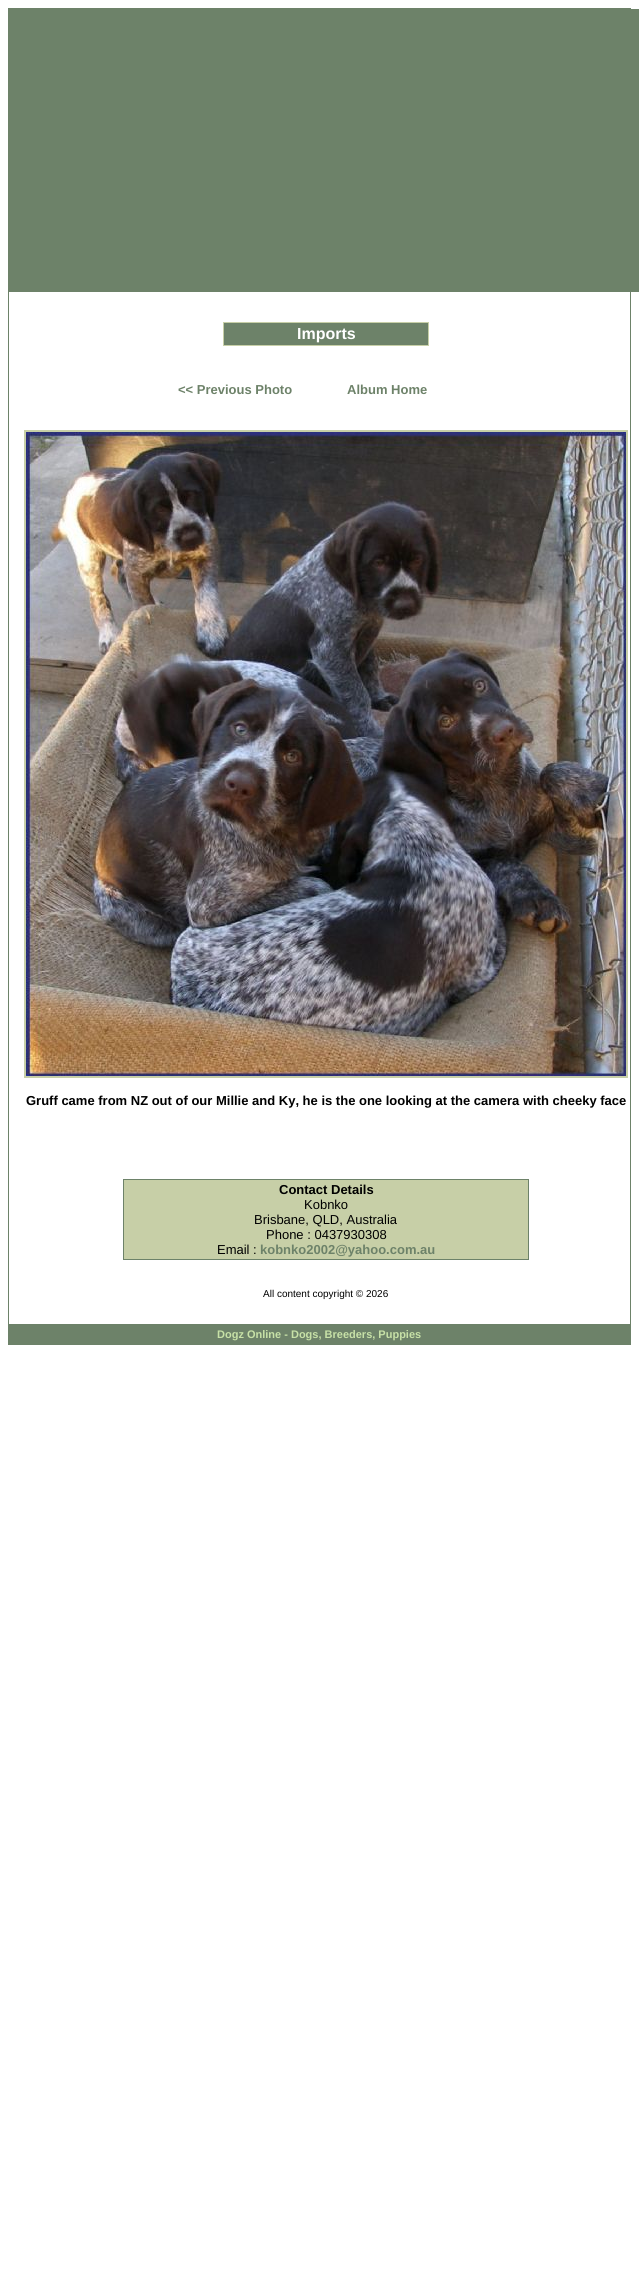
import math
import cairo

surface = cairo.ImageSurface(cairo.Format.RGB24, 639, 2291)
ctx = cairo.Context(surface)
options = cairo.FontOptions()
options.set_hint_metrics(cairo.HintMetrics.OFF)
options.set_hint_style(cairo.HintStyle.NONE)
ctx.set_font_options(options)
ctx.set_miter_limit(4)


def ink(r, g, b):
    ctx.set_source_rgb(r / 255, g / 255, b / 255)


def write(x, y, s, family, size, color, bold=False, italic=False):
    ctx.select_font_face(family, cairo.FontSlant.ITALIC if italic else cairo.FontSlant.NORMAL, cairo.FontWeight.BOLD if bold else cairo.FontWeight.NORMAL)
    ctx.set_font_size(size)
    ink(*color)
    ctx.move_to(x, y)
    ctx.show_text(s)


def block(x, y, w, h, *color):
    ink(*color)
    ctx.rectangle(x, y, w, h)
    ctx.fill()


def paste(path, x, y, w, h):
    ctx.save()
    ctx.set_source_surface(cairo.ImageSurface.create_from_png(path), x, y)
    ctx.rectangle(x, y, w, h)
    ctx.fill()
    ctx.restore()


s1 = dict(family="Liberation Sans", size=16, color=(255, 255, 255), bold=True)
s2 = dict(family="Liberation Sans", size=13, color=(109, 130, 105), bold=True)
s3 = dict(family="Liberation Sans", size=13, color=(0, 0, 0), bold=True)
s4 = dict(family="Liberation Sans", size=13, color=(0, 0, 0))
s5 = dict(family="Liberation Sans", size=10, color=(0, 0, 0))
s6 = dict(family="Liberation Sans", size=11, color=(199, 225, 167), bold=True)

ink(255, 255, 255)
ctx.paint()
ctx.rectangle(8.5, 8.5, 622, 1336)
ink(109, 130, 105)
ctx.set_line_width(1)
ctx.stroke()
block(9, 9, 630, 283, 109, 130, 105)
ctx.rectangle(223.5, 322.5, 205, 23)
ctx.fill_preserve()
ink(199, 207, 167)
ctx.stroke()
write(297, 339, "Imports", **s1)
write(178, 394, "<< Previous Photo", **s2)
write(347, 394, "Album Home", **s2)
block(24, 430, 604, 648, 199, 207, 167)
paste("pic1.png", 26, 432, 600, 644)
write(26, 1105, "Gruff came from NZ out of our Millie and Ky, he is the one looking at the camera with cheeky face", **s3)
ink(199, 207, 167)
ctx.rectangle(123.5, 1179.5, 405, 80)
ctx.fill_preserve()
ink(109, 130, 105)
ctx.stroke()
write(279, 1194, "Contact Details", **s3)
write(304, 1209, "Kobnko", **s4)
write(254, 1224, "Brisbane, QLD, Australia", **s4)
write(266, 1239, "Phone : 0437930308", **s4)
write(217, 1254, "Email :", **s4)
write(260, 1254, "kobnko2002@yahoo.com.au", **s2)
write(263, 1297, "All content copyright © 2026", **s5)
block(9, 1324, 621, 20, 109, 130, 105)
write(217, 1338, "Dogz Online - Dogs, Breeders, Puppies", **s6)
surface.write_to_png("screenshot.png")
